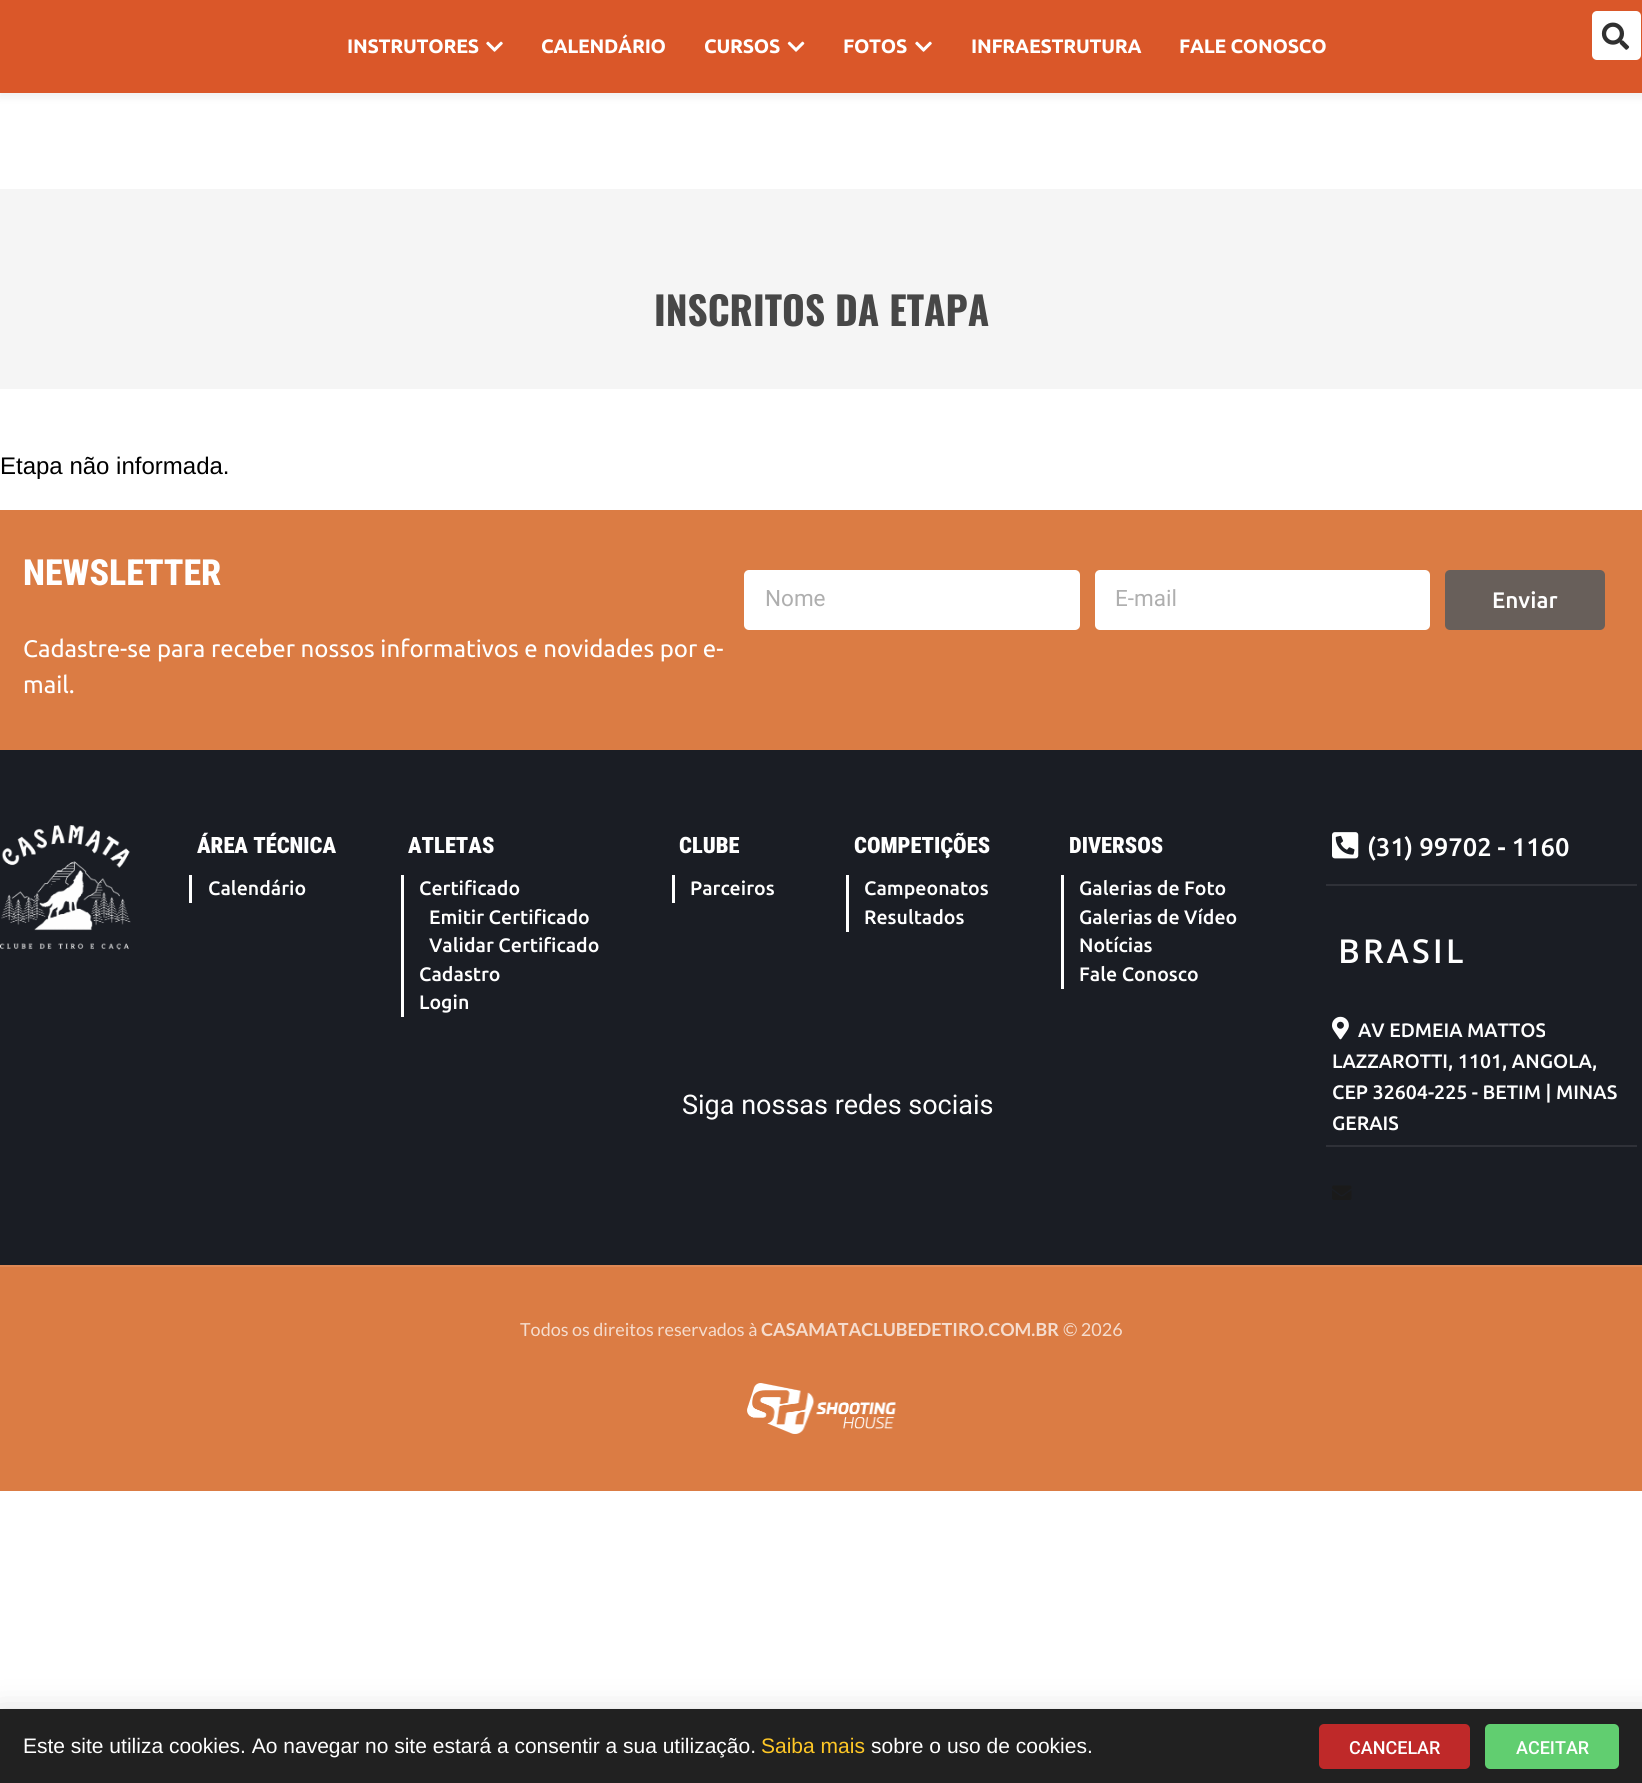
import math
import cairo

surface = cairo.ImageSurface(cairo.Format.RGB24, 1642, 1783)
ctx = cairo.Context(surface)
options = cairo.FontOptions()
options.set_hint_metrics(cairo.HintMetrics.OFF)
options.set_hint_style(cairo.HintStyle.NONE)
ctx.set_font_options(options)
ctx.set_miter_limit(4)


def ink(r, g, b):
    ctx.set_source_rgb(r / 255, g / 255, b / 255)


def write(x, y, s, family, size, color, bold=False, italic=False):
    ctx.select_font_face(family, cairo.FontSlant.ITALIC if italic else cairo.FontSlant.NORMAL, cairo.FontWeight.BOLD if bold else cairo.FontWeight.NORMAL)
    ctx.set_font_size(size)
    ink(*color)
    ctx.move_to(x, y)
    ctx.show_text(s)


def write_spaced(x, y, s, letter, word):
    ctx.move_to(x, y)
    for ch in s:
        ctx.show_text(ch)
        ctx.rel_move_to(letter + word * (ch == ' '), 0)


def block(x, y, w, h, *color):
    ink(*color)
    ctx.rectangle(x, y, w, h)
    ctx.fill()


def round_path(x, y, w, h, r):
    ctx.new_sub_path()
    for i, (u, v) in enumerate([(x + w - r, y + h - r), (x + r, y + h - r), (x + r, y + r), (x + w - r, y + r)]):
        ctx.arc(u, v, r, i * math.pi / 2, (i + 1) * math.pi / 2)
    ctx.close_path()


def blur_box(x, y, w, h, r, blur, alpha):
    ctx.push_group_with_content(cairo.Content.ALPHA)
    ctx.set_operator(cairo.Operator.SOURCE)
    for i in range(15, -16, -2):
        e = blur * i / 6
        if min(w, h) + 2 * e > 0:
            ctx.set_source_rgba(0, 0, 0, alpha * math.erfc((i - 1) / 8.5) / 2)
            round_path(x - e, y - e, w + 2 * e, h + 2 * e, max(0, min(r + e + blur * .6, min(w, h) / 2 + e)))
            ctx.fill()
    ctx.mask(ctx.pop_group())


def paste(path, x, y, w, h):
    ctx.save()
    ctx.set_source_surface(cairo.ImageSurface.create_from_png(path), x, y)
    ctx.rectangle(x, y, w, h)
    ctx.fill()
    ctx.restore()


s1 = dict(family="Oswald", size=39, color=(71, 71, 71), bold=True)
s2 = dict(family="Liberation Sans", size=24, color=(0, 0, 0))
s3 = dict(family="Roboto Condensed ExtraBold", size=36, color=(255, 255, 255))
s4 = dict(family="Ubuntu", size=24, color=(255, 255, 255))
s5 = dict(family="Roboto", size=22.5, color=(175, 175, 175))
s6 = dict(family="Ubuntu Medium", size=22.5, color=(255, 255, 255))
s7 = dict(family="Roboto Condensed Black", size=22.5, color=(255, 255, 255))
s8 = dict(family="Ubuntu Medium", size=19.5, color=(255, 255, 255))
s9 = dict(family="Roboto", size=27, color=(255, 255, 255))
s10 = dict(family="Ubuntu Medium", size=25.5, color=(255, 255, 255))
s11 = dict(family="Lato", size=18, color=(245, 220, 205))
s12 = dict(family="Lato", size=18, color=(245, 220, 205), bold=True)
s13 = dict(family="Liberation Sans", size=21, color=(255, 255, 255))
s14 = dict(family="Liberation Sans", size=21, color=(254, 199, 38))
s15 = dict(family="Roboto Medium", size=18, color=(255, 255, 255))

ink(255, 255, 255)
ctx.paint()
ink(0, 0, 0)
blur_box(-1, 2, 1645, 96, 0, 4, 0.06)
block(0, 0, 1642, 93, 218, 87, 41)
ctx.select_font_face("Ubuntu", cairo.FontSlant.NORMAL, cairo.FontWeight.BOLD)
ctx.set_font_size(19.5)
ink(255, 255, 255)
write_spaced(347, 53, "INSTRUTORES", -0.25, 0)
paste("pic1.png", 486, 41, 17, 11)
write_spaced(541, 53, "CALENDÁRIO", -0.25, 0)
write_spaced(704, 53, "CURSOS", -0.25, 0)
paste("pic2.png", 787, 41, 18, 11)
write_spaced(843, 53, "FOTOS", -0.25, 0)
paste("pic1.png", 915, 41, 17, 11)
write_spaced(971, 53, "INFRAESTRUTURA", -0.25, 0)
write_spaced(1179, 53, "FALE CONOSCO", -0.25, 0)
round_path(1592, 11, 49, 49, 5)
ctx.fill()
paste("pic3.png", 1601, 22, 29, 28)
block(0, 189, 1642, 200, 245, 245, 245)
write(654, 326, "INSCRITOS DA ETAPA", **s1)
write(0, 474, "Etapa não informada.", **s2)
block(0, 510, 1642, 240, 219, 124, 68)
write(23, 585, "NEWSLETTER", **s3)
write(23, 657, "Cadastre-se para receber nossos informativos e novidades por e-", **s4)
write(23, 693, "mail.", **s4)
round_path(744, 570, 336, 60, 5)
ctx.fill()
write(765, 606, "Nome", **s5)
ink(255, 255, 255)
round_path(1095, 570, 335, 60, 5)
ctx.fill()
write(1115, 606, "E-mail", **s5)
ink(104, 95, 90)
round_path(1445, 570, 160, 60, 5)
ctx.fill()
write(1492, 608, "Enviar", **s6)
block(0, 750, 1642, 515, 26, 29, 36)
paste("pic4.png", 0, 825, 131, 125)
write(197, 853, "ÁREA TÉCNICA", **s7)
block(189, 875, 3, 28, 255, 255, 255)
write(208, 895, "Calendário", **s8)
write(408, 853, "ATLETAS", **s7)
block(401, 875, 3, 142, 255, 255, 255)
write(419, 895, "Certificado", **s8)
write(429, 924, "Emitir Certificado", **s8)
write(429, 952, "Validar Certificado", **s8)
write(419, 981, "Cadastro", **s8)
write(419, 1009, "Login", **s8)
write(679, 853, "CLUBE", **s7)
block(672, 875, 3, 28, 255, 255, 255)
write(690, 895, "Parceiros", **s8)
write(854, 853, "COMPETIÇÕES", **s7)
block(846, 875, 3, 57, 255, 255, 255)
write(864, 895, "Campeonatos", **s8)
write(864, 924, "Resultados", **s8)
write(1069, 853, "DIVERSOS", **s7)
block(1061, 875, 3, 114, 255, 255, 255)
write(1079, 895, "Galerias de Foto", **s8)
write(1079, 924, "Galerias de Vídeo", **s8)
write(1079, 952, "Notícias", **s8)
write(1079, 981, "Fale Conosco", **s8)
write(682, 1114, "Siga nossas redes sociais", **s9)
block(1326, 884, 311, 2, 47, 49, 56)
paste("pic5.png", 1332, 832, 27, 27)
write(1367, 856, "(31) 99702 - 1160", **s10)
ctx.select_font_face("Open Sans SemiBold")
ctx.set_font_size(33)
write_spaced(1338, 963, "BRASIL", 3, 0)
block(1326, 1145, 311, 2, 47, 49, 56)
paste("pic6.png", 1332, 1016, 17, 24)
write(1358, 1037, "AV EDMEIA MATTOS", **s8)
write(1332, 1068, "LAZZAROTTI, 1101, ANGOLA,", **s8)
write(1332, 1099, "CEP 32604-225 - BETIM | MINAS", **s8)
write(1332, 1130, "GERAIS", **s8)
paste("pic7.png", 1332, 1185, 20, 15)
block(0, 1267, 1642, 224, 219, 124, 68)
block(0, 1265, 1642, 2, 222, 136, 85)
write(520, 1336, "Todos os direitos reservados à", **s11)
write(761, 1336, "CASAMATACLUBEDETIRO.COM.BR", **s12)
write(1063, 1336, "© 2026", **s11)
paste("pic8.png", 747, 1383, 149, 51)
ink(0, 0, 0)
blur_box(-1, 1716, 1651, 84, 0, 17, 0.2)
block(0, 1709, 1642, 74, 33, 33, 33)
write(23, 1753, "Este site utiliza cookies. Ao navegar no site estará a consentir a sua utilização.", **s13)
write(761, 1753, "Saiba mais", **s14)
write(871, 1753, "sobre o uso de cookies.", **s13)
ink(191, 41, 41)
round_path(1319, 1724, 151, 45, 5)
ctx.fill()
write(1349, 1754, "CANCELAR", **s15)
ink(97, 206, 112)
round_path(1485, 1724, 134, 45, 5)
ctx.fill()
write(1516, 1754, "ACEITAR", **s15)
surface.write_to_png("screenshot.png")
